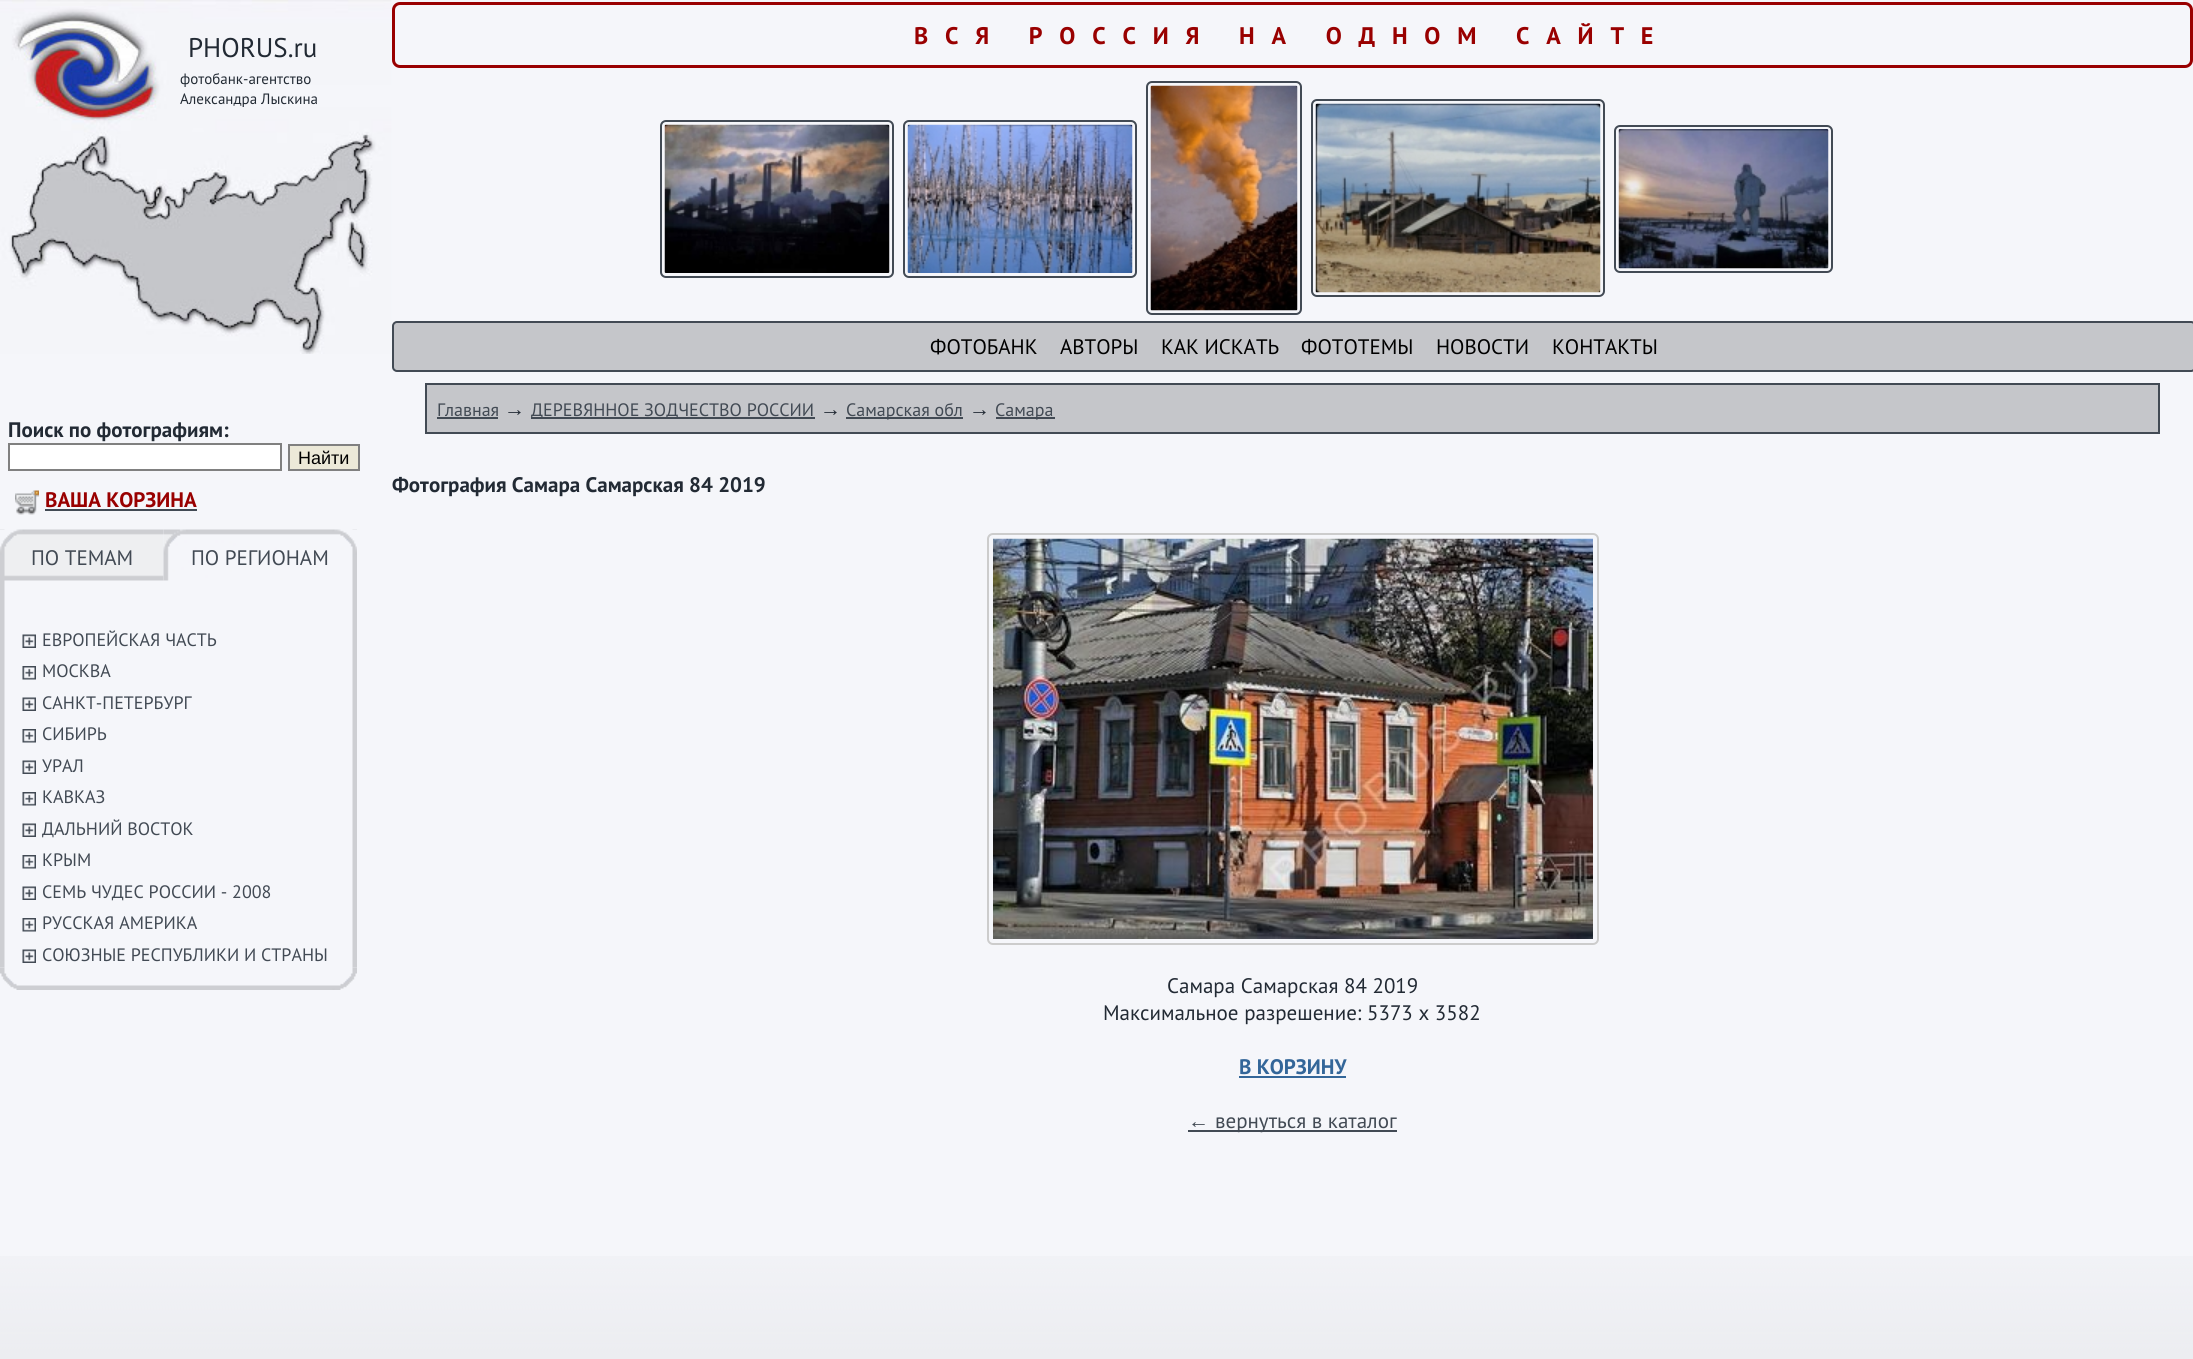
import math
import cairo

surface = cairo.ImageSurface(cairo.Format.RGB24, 2193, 1359)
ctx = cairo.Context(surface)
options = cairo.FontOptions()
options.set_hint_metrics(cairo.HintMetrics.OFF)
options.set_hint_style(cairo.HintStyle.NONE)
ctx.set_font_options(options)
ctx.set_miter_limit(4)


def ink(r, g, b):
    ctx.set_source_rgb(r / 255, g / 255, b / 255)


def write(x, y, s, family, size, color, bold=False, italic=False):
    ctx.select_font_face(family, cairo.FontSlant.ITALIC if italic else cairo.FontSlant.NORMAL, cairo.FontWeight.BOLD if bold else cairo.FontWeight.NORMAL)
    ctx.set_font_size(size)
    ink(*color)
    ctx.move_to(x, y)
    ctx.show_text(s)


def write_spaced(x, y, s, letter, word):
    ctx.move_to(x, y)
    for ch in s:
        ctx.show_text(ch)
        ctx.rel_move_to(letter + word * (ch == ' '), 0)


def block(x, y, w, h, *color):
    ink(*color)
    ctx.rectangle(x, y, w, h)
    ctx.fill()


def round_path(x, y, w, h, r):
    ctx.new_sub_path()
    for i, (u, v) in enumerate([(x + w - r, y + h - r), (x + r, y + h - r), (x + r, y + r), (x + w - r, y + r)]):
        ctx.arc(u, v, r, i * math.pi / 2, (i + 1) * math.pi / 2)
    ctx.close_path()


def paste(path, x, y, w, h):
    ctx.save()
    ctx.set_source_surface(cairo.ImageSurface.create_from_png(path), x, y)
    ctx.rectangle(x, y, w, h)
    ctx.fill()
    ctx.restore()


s1 = dict(family="PT Sans", size=27, color=(34, 42, 52))
s2 = dict(family="PT Sans", size=15, color=(34, 42, 52))
s3 = dict(family="PT Sans", size=21, color=(34, 42, 52), bold=True)
s4 = dict(family="Liberation Sans", size=18, color=(0, 0, 0))
s5 = dict(family="PT Sans", size=21, color=(153, 0, 0), bold=True)
s6 = dict(family="PT Sans", size=21, color=(66, 74, 84))
s7 = dict(family="PT Sans", size=18, color=(66, 74, 84))
s8 = dict(family="PT Sans", size=21, color=(0, 0, 0))
s9 = dict(family="Liberation Sans", size=21, color=(34, 42, 52))
s10 = dict(family="PT Sans", size=21, color=(34, 42, 52))
s11 = dict(family="PT Sans", size=21, color=(51, 102, 153), bold=True)
s12 = dict(family="Liberation Sans", size=21, color=(66, 74, 84))

ink(245, 246, 250)
ctx.paint()
paste("pic1.png", 0, 1256, 2193, 103)
paste("pic2.png", 0, 0, 392, 354)
write(188, 57, "PHORUS.ru", **s1)
write(180, 84, "фотобанк-агентство", **s2)
write(180, 104, "Александра Лыскина", **s2)
write(8, 437, "Поиск по фотографиям:", **s3)
ink(255, 255, 255)
ctx.rectangle(9, 444, 272, 26)
ctx.fill_preserve()
ink(128, 128, 128)
ctx.stroke()
ink(236, 233, 216)
ctx.rectangle(289, 445, 70, 25)
ctx.fill_preserve()
ink(128, 128, 128)
ctx.stroke()
write(298, 464, "Найти", **s4)
paste("pic3.png", 15, 490, 24, 25)
write(45, 507, "ВАША КОРЗИНА", **s5)
block(45, 509, 152, 2, 66, 74, 84)
paste("pic4.png", 0, 529, 357, 439)
paste("pic5.png", 0, 529, 164, 52)
write(31, 565, "ПО ТЕМАМ", **s6)
paste("pic6.png", 163, 529, 194, 52)
write(191, 565, "ПО РЕГИОНАМ", **s6)
paste("pic7.png", 22, 634, 14, 14)
write(42, 646, "ЕВРОПЕЙСКАЯ ЧАСТЬ", **s7)
paste("pic8.png", 22, 666, 14, 14)
write(42, 677, "МОСКВА", **s7)
paste("pic7.png", 22, 697, 14, 14)
write(42, 709, "САНКТ-ПЕТЕРБУРГ", **s7)
paste("pic8.png", 22, 729, 14, 14)
write(42, 740, "СИБИРЬ", **s7)
paste("pic7.png", 22, 760, 14, 14)
write(42, 772, "УРАЛ", **s7)
paste("pic8.png", 22, 792, 14, 14)
write(42, 803, "КАВКАЗ", **s7)
paste("pic7.png", 22, 823, 14, 14)
write(42, 835, "ДАЛЬНИЙ ВОСТОК", **s7)
paste("pic8.png", 22, 855, 14, 14)
write(42, 866, "КРЫМ", **s7)
paste("pic7.png", 22, 886, 14, 14)
write(42, 898, "СЕМЬ ЧУДЕС РОССИИ - 2008", **s7)
paste("pic8.png", 22, 918, 14, 14)
write(42, 929, "РУССКАЯ АМЕРИКА", **s7)
paste("pic7.png", 22, 949, 14, 14)
write(42, 961, "СОЮЗНЫЕ РЕСПУБЛИКИ И СТРАНЫ", **s7)
paste("pic9.png", 0, 967, 357, 23)
round_path(393.5, 3.5, 1798, 63, 6.5)
ink(153, 0, 0)
ctx.set_line_width(3)
ctx.stroke()
ctx.select_font_face("PT Sans", cairo.FontSlant.NORMAL, cairo.FontWeight.BOLD)
ctx.set_font_size(24)
write_spaced(914, 44, "ВСЯ РОССИЯ НА ОДНОМ САЙТЕ", 16.8, 0)
round_path(661, 121, 232, 156, 5)
ink(66, 74, 84)
ctx.set_line_width(2)
ctx.stroke()
paste("pic10.png", 664, 124, 226, 149)
round_path(904, 121, 232, 156, 5)
ctx.stroke()
paste("pic11.png", 907, 124, 226, 149)
round_path(1147, 82, 154, 232, 5)
ctx.stroke()
paste("pic12.png", 1150, 85, 148, 226)
round_path(1312, 100, 292, 196, 5)
ctx.stroke()
paste("pic13.png", 1315, 103, 286, 190)
round_path(1615, 126, 217, 146, 5)
ctx.stroke()
paste("pic14.png", 1618, 129, 211, 140)
ink(197, 198, 202)
round_path(393, 322, 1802, 49, 4)
ctx.fill_preserve()
ink(66, 74, 84)
ctx.stroke()
write(930, 354, "ФОТОБАНК", **s8)
write(1060, 354, "АВТОРЫ", **s8)
write(1161, 354, "КАК ИСКАТЬ", **s8)
write(1301, 354, "ФОТОТЕМЫ", **s8)
write(1436, 354, "НОВОСТИ", **s8)
write(1552, 354, "КОНТАКТЫ", **s8)
ink(197, 198, 202)
ctx.rectangle(426, 384, 1733, 49)
ctx.fill_preserve()
ink(66, 74, 84)
ctx.stroke()
write(437, 416, "Главная", **s7)
block(437, 417, 61, 2, 66, 74, 84)
write(504, 416, "→", **s9)
block(531, 417, 284, 2, 66, 74, 84)
write(531, 416, "ДЕРЕВЯННОЕ ЗОДЧЕСТВО РОССИИ", **s7)
write(820, 416, "→", **s9)
block(846, 417, 117, 2, 66, 74, 84)
write(846, 416, "Самарская обл", **s7)
write(969, 416, "→", **s9)
block(996, 417, 59, 2, 66, 74, 84)
write(995, 416, "Самара", **s7)
write(392, 492, "Фотография Самара Самарская 84 2019", **s3)
round_path(988, 534, 610, 410, 5)
ink(204, 204, 204)
ctx.stroke()
paste("pic15.png", 993, 538, 600, 401)
write(1167, 993, "Самара Самарская 84 2019", **s10)
write(1103, 1020, "Максимальное разрешение: 5373 x 3582", **s10)
write(1239, 1074, "В КОРЗИНУ", **s11)
block(1239, 1076, 107, 2, 51, 102, 153)
write(1188, 1128, "←", **s12)
block(1188, 1130, 209, 2, 66, 74, 84)
write(1215, 1128, "вернуться в каталог", **s6)
surface.write_to_png("screenshot.png")
